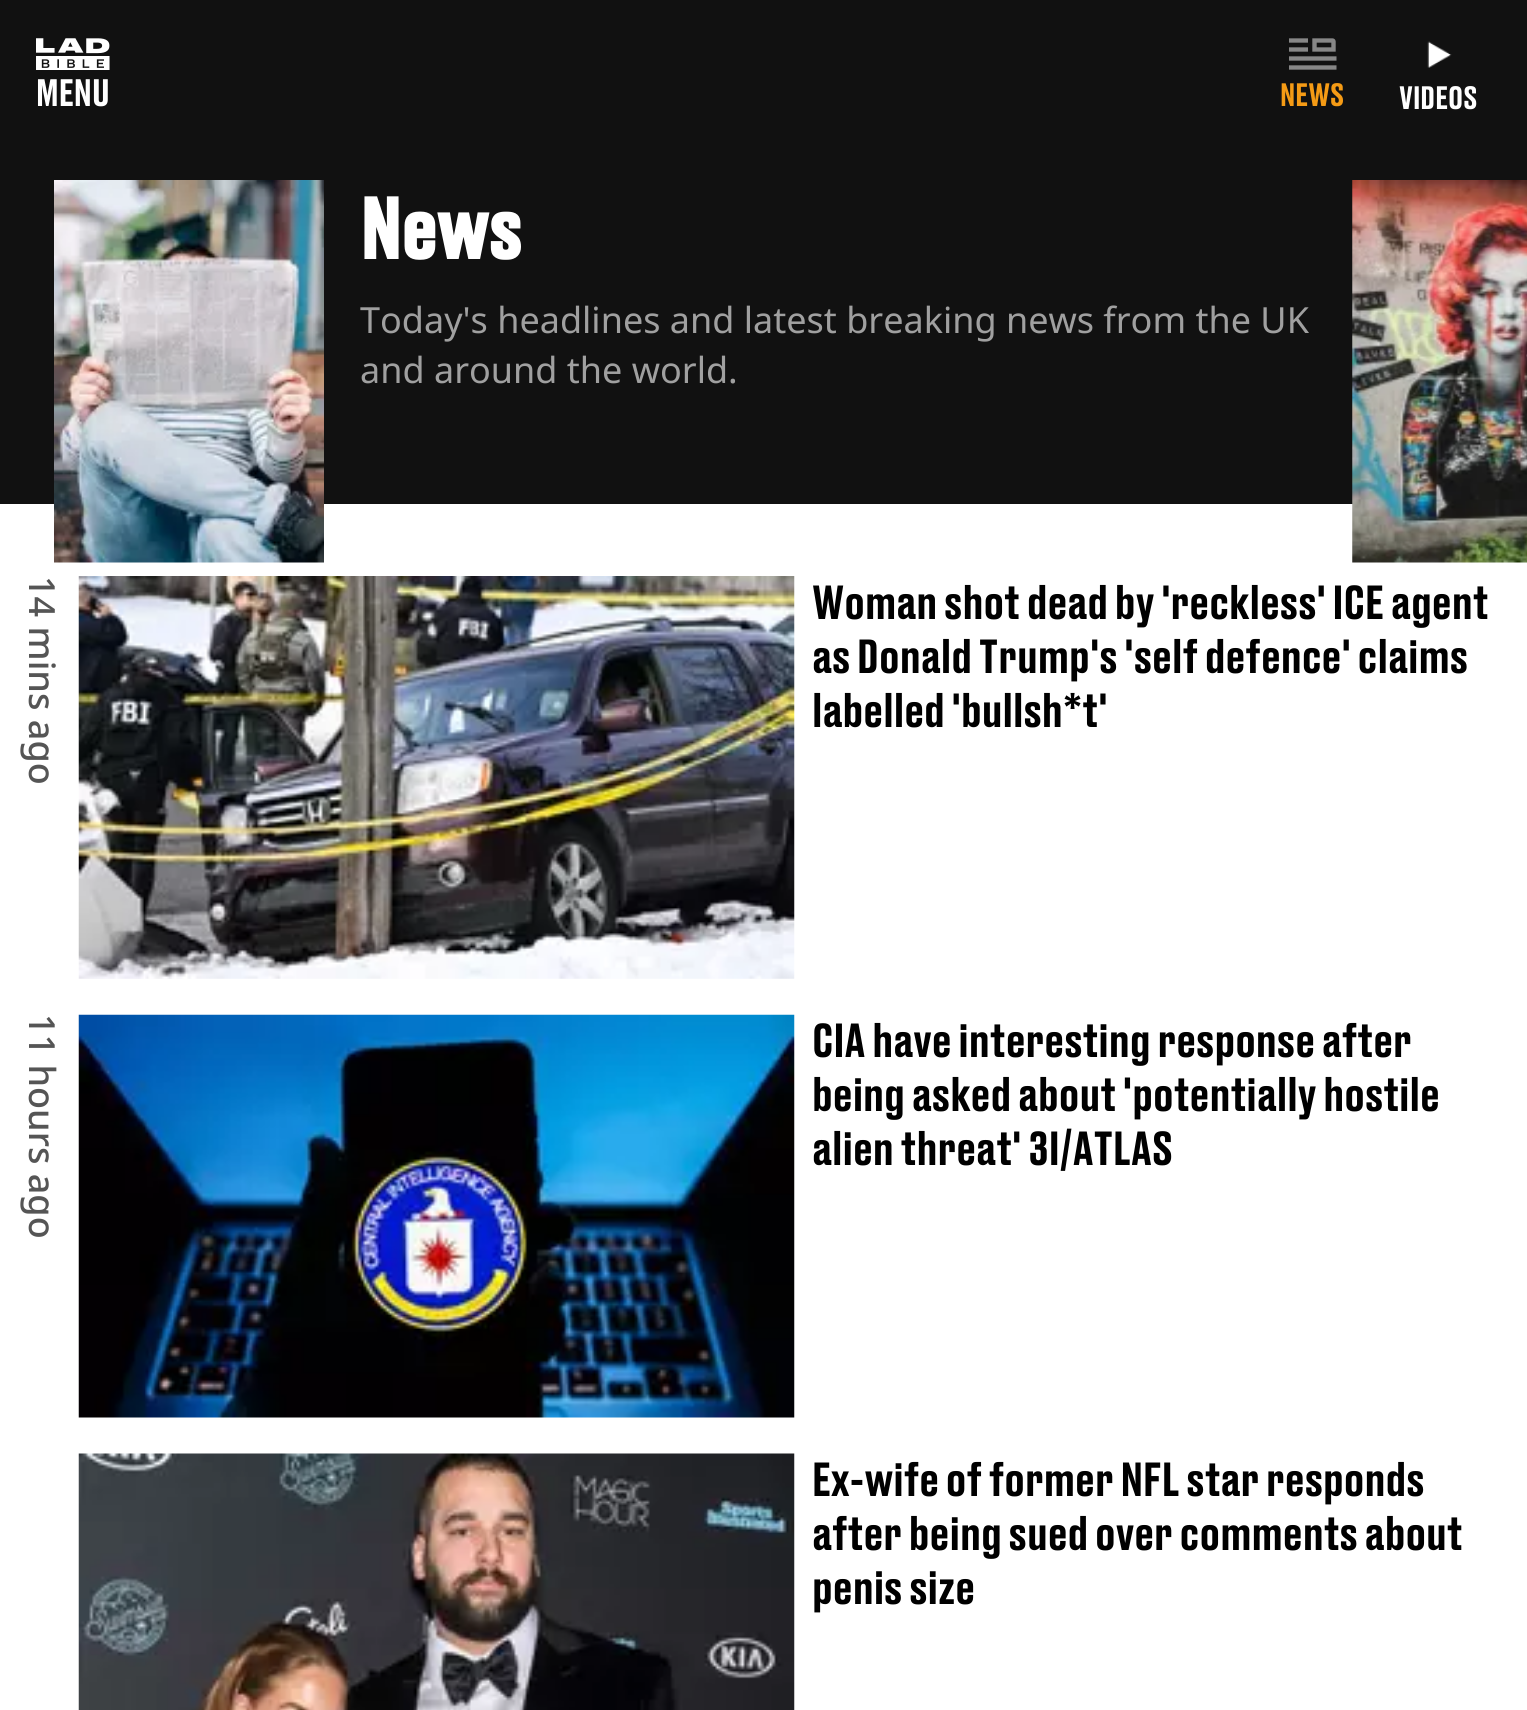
import math
import cairo

surface = cairo.ImageSurface(cairo.Format.RGB24, 1527, 1710)
ctx = cairo.Context(surface)
options = cairo.FontOptions()
options.set_hint_metrics(cairo.HintMetrics.OFF)
options.set_hint_style(cairo.HintStyle.NONE)
ctx.set_font_options(options)
ctx.set_miter_limit(4)


def ink(r, g, b):
    ctx.set_source_rgb(r / 255, g / 255, b / 255)


def write(x, y, s, family, size, color, bold=False, italic=False):
    ctx.select_font_face(family, cairo.FontSlant.ITALIC if italic else cairo.FontSlant.NORMAL, cairo.FontWeight.BOLD if bold else cairo.FontWeight.NORMAL)
    ctx.set_font_size(size)
    ink(*color)
    ctx.move_to(x, y)
    ctx.show_text(s)


def block(x, y, w, h, *color):
    ink(*color)
    ctx.rectangle(x, y, w, h)
    ctx.fill()


def paste(path, x, y, w, h):
    ctx.save()
    ctx.set_source_surface(cairo.ImageSurface.create_from_png(path), x, y)
    ctx.rectangle(x, y, w, h)
    ctx.fill()
    ctx.restore()


s1 = dict(family="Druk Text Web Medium", size=36, color=(255, 255, 255))
s2 = dict(family="Druk Text Web Medium", size=30.5, color=(245, 155, 21))
s3 = dict(family="Druk Text Web Medium", size=30.5, color=(255, 255, 255))
s4 = dict(family="Druk Text Web", size=81, color=(255, 255, 255), bold=True)
s5 = dict(family="Noto Sans", size=36, color=(160, 160, 160))
s6 = dict(family="Noto Sans Medium", size=36, color=(85, 85, 85))
s7 = dict(family="Druk Text Web Medium", size=45, color=(0, 0, 0))

ink(255, 255, 255)
ctx.paint()
block(0, 0, 1527, 504, 17, 17, 17)
paste("pic1.png", 36, 38, 74, 32)
write(36, 106, "MENU", **s1)
ctx.new_path()
ctx.move_to(1289, 58.5)
ctx.line_to(1336.5, 58.5)
ctx.move_to(1289, 67.5)
ctx.line_to(1336.5, 67.5)
ctx.move_to(1289, 40.5)
ctx.line_to(1308, 40.5)
ctx.move_to(1289, 49.5)
ctx.line_to(1308, 49.5)
ctx.move_to(1314.5, 40.5)
ctx.line_to(1332.5, 40.5)
ctx.curve_to(1333, 40.5, 1333.5, 41, 1333.5, 41.5)
ctx.line_to(1333.5, 49.5)
ctx.line_to(1314.5, 49.5)
ctx.close_path()
ink(135, 135, 135)
ctx.set_line_width(4.4)
ctx.stroke()
write(1280, 106, "NEWS", **s2)
paste("pic2.png", 1427, 41, 25, 27)
write(1399, 109, "VIDEOS", **s3)
paste("pic3.png", 54, 180, 270, 383)
write(360, 259, "News", **s4)
write(360, 333, "Today's headlines and latest breaking news from the UK", **s5)
write(360, 383, "and around the world.", **s5)
paste("pic4.png", 1352, 180, 175, 383)
ctx.save()
ctx.translate(29, 576)
ctx.rotate(90 * math.pi / 180)
write(0, 0, "14 mins ago", **s6)
ctx.restore()
ctx.save()
ctx.translate(29, 1014)
ctx.rotate(90 * math.pi / 180)
write(0, 0, "11 hours ago", **s6)
ctx.restore()
paste("pic5.png", 78, 576, 717, 403)
write(812, 619, "Woman shot dead by 'reckless' ICE agent", **s7)
write(812, 673, "as Donald Trump's 'self defence' claims", **s7)
write(812, 727, "labelled 'bullsh*t'", **s7)
paste("pic6.png", 78, 1014, 717, 404)
write(812, 1057, "CIA have interesting response after", **s7)
write(812, 1111, "being asked about 'potentially hostile", **s7)
write(812, 1165, "alien threat' 3I/ATLAS", **s7)
paste("pic7.png", 78, 1453, 717, 257)
write(812, 1496, "Ex-wife of former NFL star responds", **s7)
write(812, 1550, "after being sued over comments about", **s7)
write(812, 1604, "penis size", **s7)
surface.write_to_png("screenshot.png")
